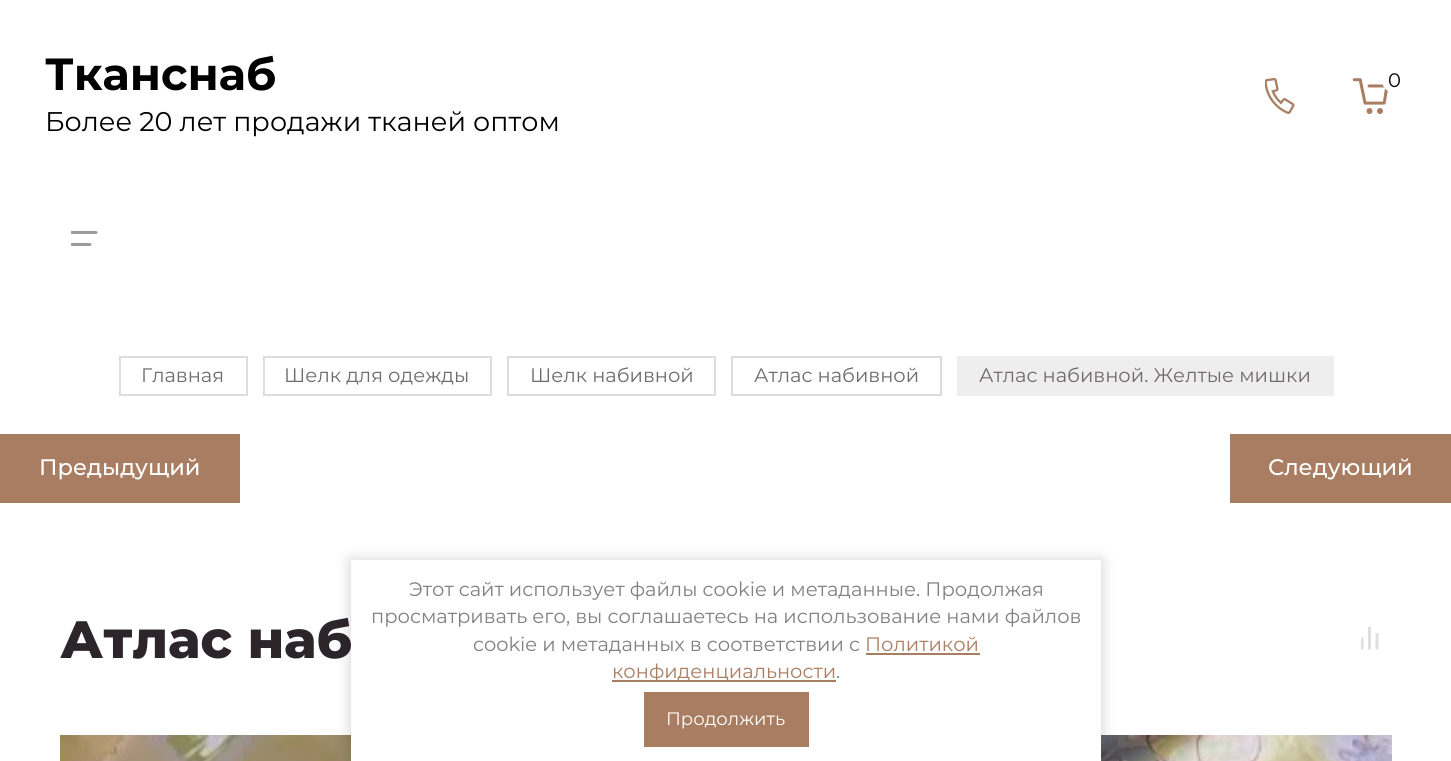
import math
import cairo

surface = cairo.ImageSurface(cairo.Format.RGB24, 1451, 761)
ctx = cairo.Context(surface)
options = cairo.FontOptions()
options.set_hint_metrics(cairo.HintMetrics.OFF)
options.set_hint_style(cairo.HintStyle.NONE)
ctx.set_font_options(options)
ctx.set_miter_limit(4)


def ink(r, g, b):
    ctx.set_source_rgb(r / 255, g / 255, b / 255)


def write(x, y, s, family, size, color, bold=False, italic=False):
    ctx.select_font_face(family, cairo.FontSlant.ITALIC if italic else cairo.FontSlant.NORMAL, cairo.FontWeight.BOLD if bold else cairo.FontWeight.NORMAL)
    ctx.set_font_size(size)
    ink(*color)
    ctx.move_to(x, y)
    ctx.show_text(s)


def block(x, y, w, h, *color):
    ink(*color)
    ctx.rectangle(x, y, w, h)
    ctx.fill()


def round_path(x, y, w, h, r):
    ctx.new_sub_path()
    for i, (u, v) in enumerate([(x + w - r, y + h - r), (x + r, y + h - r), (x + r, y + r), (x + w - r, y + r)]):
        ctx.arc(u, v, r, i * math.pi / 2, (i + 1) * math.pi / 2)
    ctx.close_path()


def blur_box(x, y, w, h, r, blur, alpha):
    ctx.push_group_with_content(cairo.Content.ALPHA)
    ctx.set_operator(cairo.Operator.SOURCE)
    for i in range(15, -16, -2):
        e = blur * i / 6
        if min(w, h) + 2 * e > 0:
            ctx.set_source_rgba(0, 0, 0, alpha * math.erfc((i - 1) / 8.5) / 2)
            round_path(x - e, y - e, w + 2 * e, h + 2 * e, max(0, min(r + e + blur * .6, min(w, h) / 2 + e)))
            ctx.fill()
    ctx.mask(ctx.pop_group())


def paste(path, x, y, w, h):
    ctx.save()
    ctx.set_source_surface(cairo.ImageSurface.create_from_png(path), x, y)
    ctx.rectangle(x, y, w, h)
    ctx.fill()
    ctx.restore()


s1 = dict(family="Montserrat", size=45, color=(0, 0, 0), bold=True)
s2 = dict(family="Montserrat", size=27, color=(0, 0, 0))
s3 = dict(family="Montserrat", size=19.5, color=(0, 0, 0))
s4 = dict(family="Montserrat", size=19.5, color=(112, 106, 110))
s5 = dict(family="Montserrat Medium", size=22.5, color=(255, 255, 255))
s6 = dict(family="Montserrat ExtraBold", size=52.5, color=(44, 38, 42))
s7 = dict(family="Montserrat", size=19.5, color=(128, 128, 128))
s8 = dict(family="Montserrat", size=19.5, color=(169, 125, 98))
s9 = dict(family="Montserrat", size=18, color=(255, 255, 255))

ink(255, 255, 255)
ctx.paint()
write(45, 90, "Тканснаб", **s1)
write(45, 131, "Более 20 лет продажи тканей оптом", **s2)
paste("pic1.png", 1265, 78, 30, 36)
paste("pic2.png", 1352, 78, 36, 36)
ink(255, 255, 255)
ctx.arc(1394.5, 80.5, 12.5, 0, 2 * math.pi)
ctx.fill()
write(1388, 87, "0", **s3)
paste("pic3.png", 71, 231, 27, 15)
ctx.rectangle(120, 357, 127, 38)
ink(220, 220, 220)
ctx.stroke()
write(141, 382, "Главная", **s4)
ctx.rectangle(264, 357, 227, 38)
ink(220, 220, 220)
ctx.stroke()
write(284, 382, "Шелк для одежды", **s4)
ctx.rectangle(508, 357, 207, 38)
ink(220, 220, 220)
ctx.stroke()
write(530, 382, "Шелк набивной", **s4)
ctx.rectangle(732, 357, 209, 38)
ink(220, 220, 220)
ctx.stroke()
write(754, 382, "Атлас набивной", **s4)
block(957, 356, 377, 40, 238, 238, 238)
write(979, 382, "Атлас набивной. Желтые мишки", **s4)
block(0, 434, 240, 69, 169, 125, 98)
write(39, 475, "Предыдущий", **s5)
block(1230, 434, 221, 69, 169, 125, 98)
write(1268, 475, "Следующий", **s5)
write(60, 658, "Атлас наб", **s6)
paste("pic4.png", 1361, 627, 18, 23)
paste("pic5.png", 60, 735, 1332, 26)
ink(0, 0, 0)
blur_box(351, 561, 750, 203, 0, 7.5, 0.2)
block(351, 560, 750, 201, 255, 255, 255)
write(409, 596, "Этот сайт использует файлы cookie и метаданные. Продолжая", **s7)
write(371, 623, "просматривать его, вы соглашаетесь на использование нами файлов", **s7)
write(473, 651, "cookie и метаданных в соответствии с", **s7)
write(865, 651, "Политикой", **s8)
block(866, 653, 114, 2, 169, 125, 98)
block(612, 680, 224, 2, 169, 125, 98)
write(612, 678, "конфиденциальности", **s8)
write(836, 678, ".", **s7)
block(644, 692, 165, 55, 169, 125, 98)
write(666, 725, "Продолжить", **s9)
surface.write_to_png("screenshot.png")
